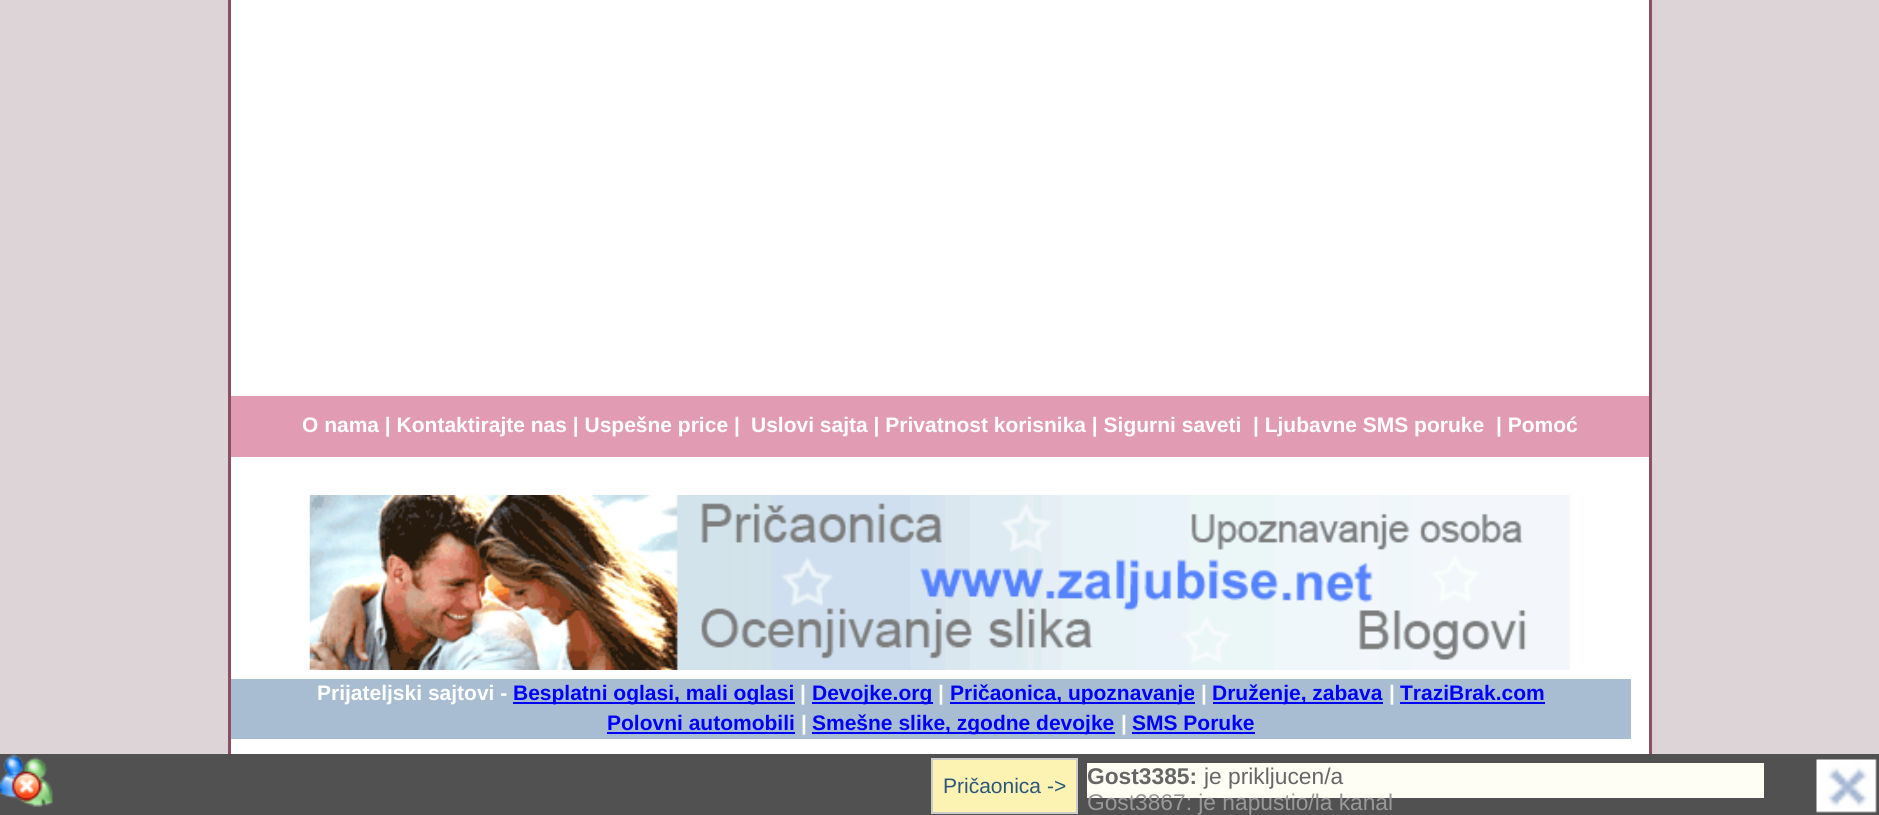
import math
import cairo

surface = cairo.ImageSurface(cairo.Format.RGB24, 1879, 815)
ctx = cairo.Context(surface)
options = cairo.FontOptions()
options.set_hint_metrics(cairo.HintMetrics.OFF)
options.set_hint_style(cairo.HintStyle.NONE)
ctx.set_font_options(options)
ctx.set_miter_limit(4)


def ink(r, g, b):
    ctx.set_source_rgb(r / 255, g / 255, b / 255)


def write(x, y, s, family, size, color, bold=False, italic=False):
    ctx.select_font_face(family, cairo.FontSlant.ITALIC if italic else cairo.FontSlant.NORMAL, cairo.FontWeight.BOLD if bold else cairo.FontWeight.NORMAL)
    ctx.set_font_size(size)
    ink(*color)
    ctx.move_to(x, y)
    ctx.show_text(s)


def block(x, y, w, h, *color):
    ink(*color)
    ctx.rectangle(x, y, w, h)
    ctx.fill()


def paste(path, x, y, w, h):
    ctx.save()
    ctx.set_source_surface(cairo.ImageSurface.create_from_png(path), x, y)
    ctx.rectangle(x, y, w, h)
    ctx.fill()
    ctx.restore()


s1 = dict(family="Liberation Sans", size=21, color=(255, 255, 255), bold=True)
s2 = dict(family="Liberation Sans", size=21, color=(0, 0, 255), bold=True)
s3 = dict(family="Liberation Sans", size=21, color=(44, 86, 125))
s4 = dict(family="Liberation Sans", size=22.75, color=(102, 102, 102), bold=True)
s5 = dict(family="Liberation Sans", size=22.75, color=(102, 102, 102))
s6 = dict(family="Liberation Sans", size=22.75, color=(153, 153, 153))

ink(220, 212, 215)
ctx.paint()
ctx.rectangle(230, -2, 1420, 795)
ink(141, 79, 100)
ctx.set_line_width(4)
ctx.stroke()
block(231, 0, 1418, 754, 255, 255, 255)
block(231, 396, 1418, 61, 225, 156, 179)
write(302, 432, "O nama | Kontaktirajte nas | Uspešne price |", **s1)
write(751, 432, "Uslovi sajta | Privatnost korisnika | Sigurni saveti", **s1)
write(1253, 432, "| Ljubavne SMS poruke", **s1)
write(1496, 432, "| Pomoć", **s1)
paste("pic1.png", 309, 495, 1261, 175)
block(231, 679, 1400, 60, 168, 189, 209)
write(317, 700, "Prijateljski sajtovi -", **s1)
block(513, 702, 282, 2, 0, 0, 255)
write(513, 700, "Besplatni oglasi, mali oglasi", **s2)
write(800, 700, "|", **s1)
block(812, 702, 121, 2, 0, 0, 255)
write(812, 700, "Devojke.org", **s2)
write(938, 700, "|", **s1)
block(950, 702, 245, 2, 0, 0, 255)
write(950, 700, "Pričaonica, upoznavanje", **s2)
write(1201, 700, "|", **s1)
block(1213, 702, 170, 2, 0, 0, 255)
write(1212, 700, "Druženje, zabava", **s2)
write(1389, 700, "|", **s1)
write(1400, 700, "TraziBrak.com", **s2)
block(1400, 702, 145, 2, 0, 0, 255)
write(607, 730, "Polovni automobili", **s2)
block(607, 732, 188, 2, 0, 0, 255)
write(801, 730, "|", **s1)
block(812, 732, 303, 2, 0, 0, 255)
write(812, 730, "Smešne slike, zgodne devojke", **s2)
write(1121, 730, "|", **s1)
write(1132, 730, "SMS Poruke", **s2)
block(1132, 732, 123, 2, 0, 0, 255)
block(0, 754, 1879, 61, 81, 81, 81)
paste("pic2.png", 0, 754, 53, 53)
ink(252, 243, 179)
ctx.rectangle(932, 759, 145, 54)
ctx.fill_preserve()
ink(204, 204, 204)
ctx.set_line_width(2)
ctx.stroke()
write(943, 793, "Pričaonica ->", **s3)
block(1087, 763, 677, 35, 255, 254, 245)
write(1087, 784, "Gost3385:", **s4)
write(1204, 784, "je prikljucen/a", **s5)
write(1087, 810, "Gost3867: je napustio/la kanal", **s6)
paste("pic3.png", 1816, 759, 61, 54)
surface.write_to_png("screenshot.png")
